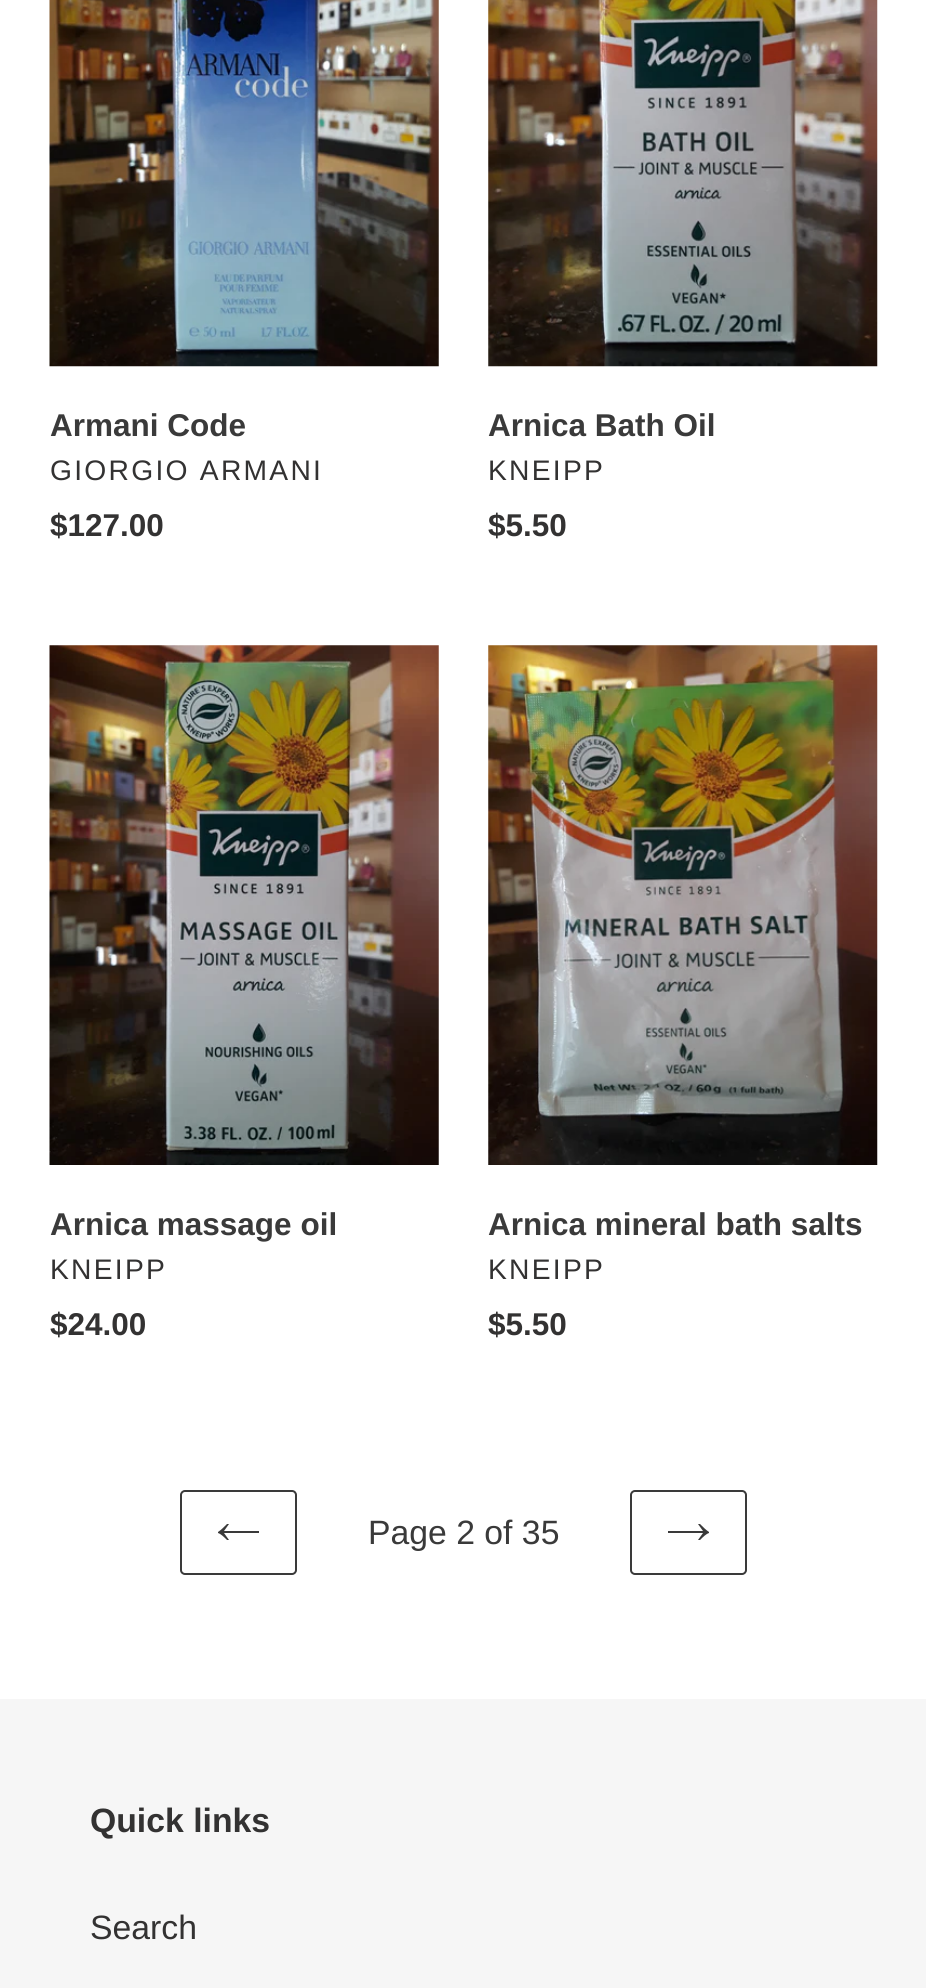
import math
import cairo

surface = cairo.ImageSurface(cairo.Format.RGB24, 926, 1988)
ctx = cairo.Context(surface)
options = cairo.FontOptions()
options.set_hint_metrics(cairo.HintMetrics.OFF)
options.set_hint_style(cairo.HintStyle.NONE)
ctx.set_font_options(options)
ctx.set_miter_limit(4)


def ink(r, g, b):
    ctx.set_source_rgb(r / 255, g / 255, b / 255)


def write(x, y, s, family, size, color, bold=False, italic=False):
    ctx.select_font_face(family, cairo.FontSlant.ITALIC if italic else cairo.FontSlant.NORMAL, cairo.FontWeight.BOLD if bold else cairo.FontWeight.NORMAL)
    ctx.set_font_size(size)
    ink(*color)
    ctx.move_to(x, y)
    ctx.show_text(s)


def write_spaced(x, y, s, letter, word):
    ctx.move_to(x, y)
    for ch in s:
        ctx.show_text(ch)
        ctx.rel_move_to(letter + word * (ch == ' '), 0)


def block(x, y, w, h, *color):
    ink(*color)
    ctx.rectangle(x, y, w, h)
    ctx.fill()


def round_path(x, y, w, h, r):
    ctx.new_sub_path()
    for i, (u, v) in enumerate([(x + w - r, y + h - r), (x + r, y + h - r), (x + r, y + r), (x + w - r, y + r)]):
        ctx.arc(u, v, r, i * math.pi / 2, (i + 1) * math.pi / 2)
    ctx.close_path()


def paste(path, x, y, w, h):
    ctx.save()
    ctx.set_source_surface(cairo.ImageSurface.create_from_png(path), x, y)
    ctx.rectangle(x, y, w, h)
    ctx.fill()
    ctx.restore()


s1 = dict(family="Liberation Sans", size=31.5, color=(58, 58, 58), bold=True)
s2 = dict(family="Liberation Sans", size=31.5, color=(51, 50, 50), bold=True)
s3 = dict(family="Liberation Sans", size=33.75, color=(58, 58, 58))
s4 = dict(family="Liberation Sans", size=33.75, color=(51, 50, 50), bold=True)
s5 = dict(family="Liberation Sans", size=33.75, color=(51, 50, 50))

ink(255, 255, 255)
ctx.paint()
paste("pic1.png", 49, 0, 390, 367)
write(50, 436, "Armani Code", **s1)
ctx.select_font_face("Liberation Sans")
ctx.set_font_size(28.25)
ink(51, 50, 50)
write_spaced(50, 480, "GIORGIO ARMANI", 2.25, 0)
write(50, 536, "$127.00", **s2)
paste("pic2.png", 488, 0, 390, 367)
write(488, 436, "Arnica Bath Oil", **s1)
ctx.select_font_face("Liberation Sans")
ctx.set_font_size(28.25)
ink(51, 50, 50)
write_spaced(488, 480, "KNEIPP", 2.25, 0)
write(488, 536, "$5.50", **s2)
paste("pic3.png", 49, 645, 390, 520)
write(50, 1235, "Arnica massage oil", **s1)
ctx.select_font_face("Liberation Sans")
ctx.set_font_size(28.25)
ink(51, 50, 50)
write_spaced(50, 1279, "KNEIPP", 2.25, 0)
write(50, 1335, "$24.00", **s2)
paste("pic4.png", 488, 645, 390, 520)
write(488, 1235, "Arnica mineral bath salts", **s1)
ctx.select_font_face("Liberation Sans")
ctx.set_font_size(28.25)
ink(51, 50, 50)
write_spaced(488, 1279, "KNEIPP", 2.25, 0)
write(488, 1335, "$5.50", **s2)
round_path(181, 1491, 115, 83, 4)
ink(58, 58, 58)
ctx.stroke()
ctx.set_fill_rule(cairo.FillRule.EVEN_ODD)
ctx.new_path()
ctx.move_to(227, 1540)
ctx.curve_to(224, 1537, 221, 1534, 218, 1533)
ctx.line_to(218, 1532)
ctx.curve_to(221, 1530, 224, 1527, 227, 1524)
ctx.line_to(229, 1524)
ctx.line_to(224, 1531)
ctx.line_to(259, 1531)
ctx.line_to(259, 1533)
ctx.line_to(224, 1533)
ctx.line_to(229, 1540)
ctx.close_path()
ctx.fill()
write(368, 1544, "Page 2 of 35", **s3)
round_path(631, 1491, 115, 83, 4)
ctx.stroke()
ctx.new_path()
ctx.move_to(700, 1524)
ctx.curve_to(703, 1527, 706, 1530, 709, 1532)
ctx.line_to(709, 1533)
ctx.curve_to(706, 1534, 703, 1537, 700, 1540)
ctx.line_to(698, 1540)
ctx.line_to(703, 1533)
ctx.line_to(668, 1533)
ctx.line_to(668, 1531)
ctx.line_to(703, 1531)
ctx.line_to(698, 1524)
ctx.close_path()
ctx.fill()
block(0, 1699, 926, 289, 246, 246, 246)
write(90, 1832, "Quick links", **s4)
write(90, 1939, "Search", **s5)
surface.write_to_png("screenshot.png")
